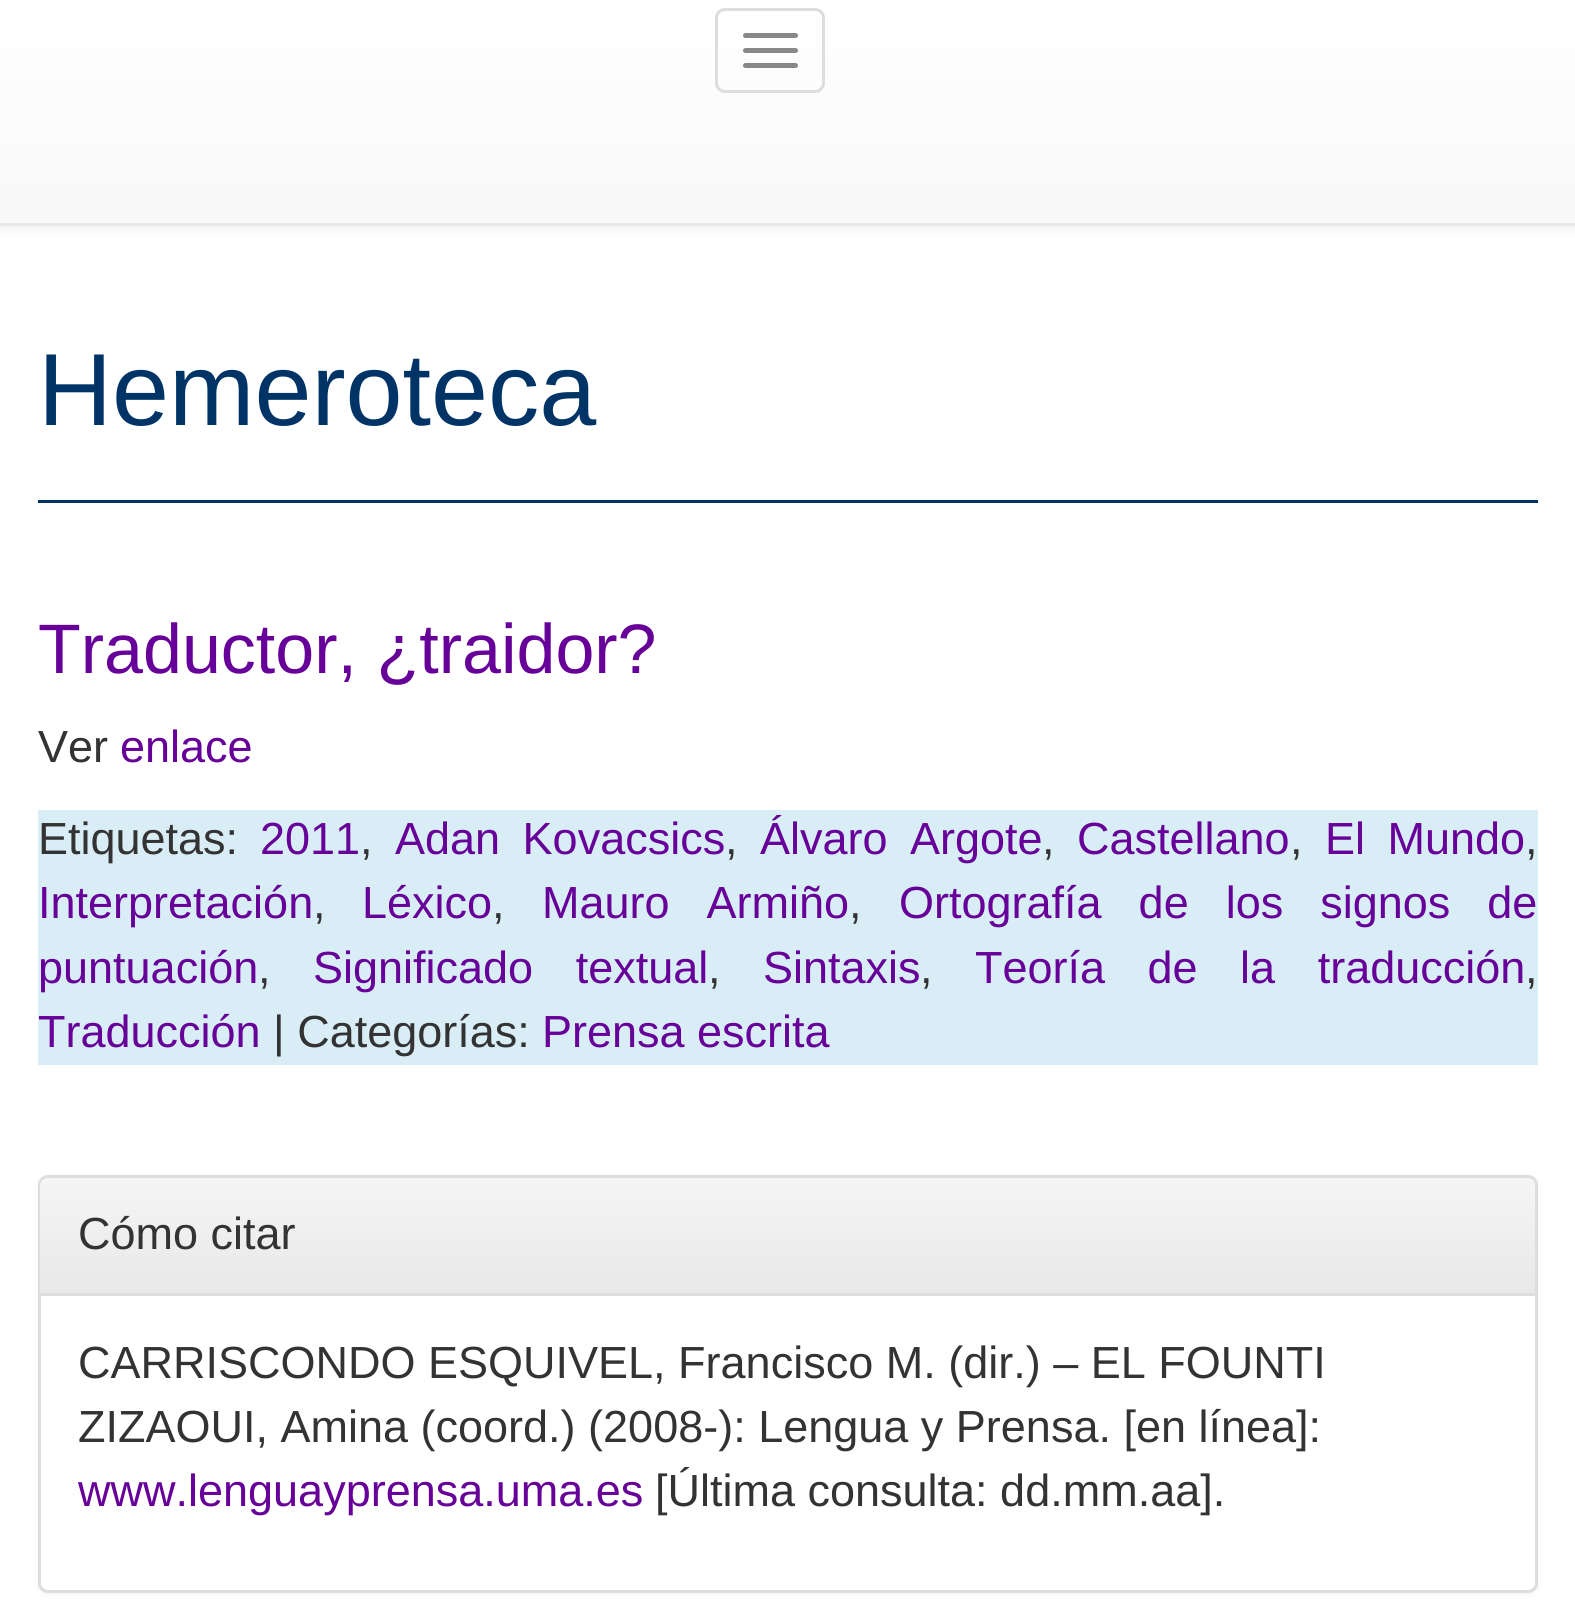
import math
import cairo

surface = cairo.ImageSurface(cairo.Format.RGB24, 1575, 1603)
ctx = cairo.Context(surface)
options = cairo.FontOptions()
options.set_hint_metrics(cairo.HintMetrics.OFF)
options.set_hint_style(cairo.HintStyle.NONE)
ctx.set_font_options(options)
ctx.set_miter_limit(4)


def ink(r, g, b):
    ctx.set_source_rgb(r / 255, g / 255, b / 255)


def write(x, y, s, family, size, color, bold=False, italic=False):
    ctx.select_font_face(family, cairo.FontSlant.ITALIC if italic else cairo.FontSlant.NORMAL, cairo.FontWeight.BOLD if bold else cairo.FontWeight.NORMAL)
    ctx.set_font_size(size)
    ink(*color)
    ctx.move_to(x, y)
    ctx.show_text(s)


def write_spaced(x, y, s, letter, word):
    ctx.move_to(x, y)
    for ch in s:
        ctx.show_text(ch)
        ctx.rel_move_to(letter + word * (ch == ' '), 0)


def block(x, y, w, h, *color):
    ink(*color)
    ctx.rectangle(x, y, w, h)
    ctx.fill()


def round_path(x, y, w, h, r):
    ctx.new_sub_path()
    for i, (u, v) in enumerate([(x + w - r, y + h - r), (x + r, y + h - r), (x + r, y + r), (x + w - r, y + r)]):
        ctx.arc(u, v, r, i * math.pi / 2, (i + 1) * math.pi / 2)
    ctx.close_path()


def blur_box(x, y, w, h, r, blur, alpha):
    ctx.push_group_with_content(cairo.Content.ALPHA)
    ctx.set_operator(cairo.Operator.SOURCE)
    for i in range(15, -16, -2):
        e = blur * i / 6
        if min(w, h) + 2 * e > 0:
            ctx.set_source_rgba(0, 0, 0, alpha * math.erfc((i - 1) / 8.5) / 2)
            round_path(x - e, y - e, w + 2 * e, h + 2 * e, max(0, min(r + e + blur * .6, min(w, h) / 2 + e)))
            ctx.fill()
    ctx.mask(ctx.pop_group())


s1 = dict(family="Liberation Sans", size=102.5, color=(0, 52, 102))
s2 = dict(family="Liberation Sans", size=70, color=(103, 0, 153))
s3 = dict(family="Liberation Sans", size=45, color=(51, 51, 51))
s4 = dict(family="Liberation Sans", size=45, color=(103, 0, 153))

ink(255, 255, 255)
ctx.paint()
ink(0, 0, 0)
blur_box(0, 3, 1575, 225, 0, 6, 0.07)
gradient = cairo.LinearGradient(788, 0, 788, 223)
gradient.add_color_stop_rgba(0, 1, 1, 1, 1)
gradient.add_color_stop_rgba(1, 0.973, 0.973, 0.973, 1)
ctx.set_source(gradient)
ctx.rectangle(0, 0, 1575, 223)
ctx.fill()
block(0, 223, 1575, 3, 231, 231, 231)
round_path(716.5, 9.5, 107, 82, 8.5)
ink(221, 221, 221)
ctx.set_line_width(3)
ctx.stroke()
ink(136, 136, 136)
round_path(743, 33, 55, 5, 2.5)
ctx.fill()
round_path(743, 48, 55, 5, 2.5)
ctx.fill()
round_path(743, 63, 55, 5, 2.5)
ctx.fill()
block(38, 500, 1500, 3, 0, 52, 102)
write(38, 425, "Hemeroteca", **s1)
write(38, 673, "Traductor, ¿traidor?", **s2)
write(38, 762, "Ver", **s3)
write(120, 762, "enlace", **s4)
block(38, 810, 1500, 255, 217, 237, 247)
write(38, 854, "Etiquetas:", **s3)
write(260, 854, "2011", **s4)
write(360, 854, ",", **s3)
ink(103, 0, 153)
write_spaced(395, 854, "Adan Kovacsics", 0, 10)
write(725, 854, ",", **s3)
ink(103, 0, 153)
write_spaced(760, 854, "Álvaro Argote", 0, 10)
write(1042, 854, ",", **s3)
write(1077, 854, "Castellano", **s4)
write(1290, 854, ",", **s3)
ink(103, 0, 153)
write_spaced(1325, 854, "El Mundo", 0, 10)
write(1525, 854, ",", **s3)
write(38, 918, "Interpretación", **s4)
write(313, 918, ",", **s3)
write(362, 918, "Léxico", **s4)
write(492, 918, ",", **s3)
ink(103, 0, 153)
write_spaced(542, 918, "Mauro Armiño", 0, 24.5)
write(849, 918, ",", **s3)
ink(103, 0, 153)
write_spaced(899, 918, "Ortografía de los signos de", 0, 24.5)
write(38, 983, "puntuación", **s4)
write(258, 983, ",", **s3)
ink(103, 0, 153)
write_spaced(313, 983, "Significado textual", 0, 30)
write(708, 983, ",", **s3)
write(763, 983, "Sintaxis", **s4)
write(920, 983, ",", **s3)
ink(103, 0, 153)
write_spaced(975, 983, "Teoría de la traducción", 0, 30)
write(1525, 983, ",", **s3)
write(38, 1047, "Traducción", **s4)
write(273, 1047, "| Categorías:", **s3)
write(542, 1047, "Prensa escrita", **s4)
ink(0, 0, 0)
blur_box(38, 1178, 1500, 417, 10, 2.5, 0.05)
ink(255, 255, 255)
round_path(39.5, 1176.5, 1497, 415, 8.5)
ctx.fill_preserve()
ink(221, 221, 221)
ctx.stroke()
gradient = cairo.LinearGradient(788, 1177, 788, 1293)
gradient.add_color_stop_rgba(0, 0.961, 0.961, 0.961, 1)
gradient.add_color_stop_rgba(1, 0.91, 0.91, 0.91, 1)
ctx.set_source(gradient)
ctx.new_path()
ctx.move_to(48, 1178)
ctx.line_to(1527, 1178)
ctx.curve_to(1531.5, 1178, 1535, 1181.5, 1535, 1186)
ctx.line_to(1535, 1293)
ctx.line_to(40, 1293)
ctx.line_to(40, 1186)
ctx.curve_to(40, 1181.5, 43.5, 1178, 48, 1178)
ctx.close_path()
ctx.fill()
block(40, 1293, 1495, 3, 221, 221, 221)
write(78, 1249, "Cómo citar", **s3)
write(78, 1378, "CARRISCONDO ESQUIVEL, Francisco M. (dir.) – EL FOUNTI", **s3)
write(78, 1442, "ZIZAOUI, Amina (coord.) (2008-): Lengua y Prensa. [en línea]:", **s3)
write(78, 1506, "www.lenguayprensa.uma.es", **s4)
write(655, 1506, "[Última consulta: dd.mm.aa].", **s3)
surface.write_to_png("screenshot.png")
